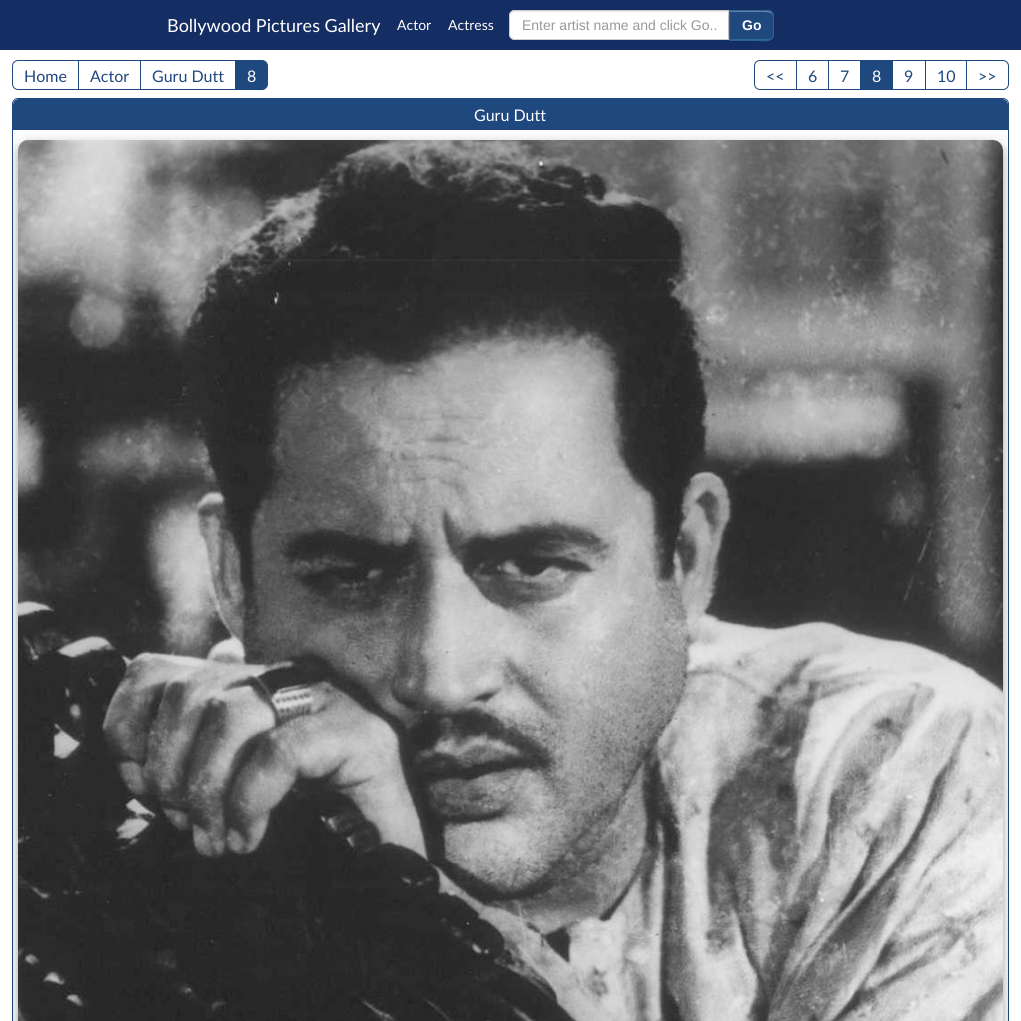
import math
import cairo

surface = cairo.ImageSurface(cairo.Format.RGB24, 1021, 1021)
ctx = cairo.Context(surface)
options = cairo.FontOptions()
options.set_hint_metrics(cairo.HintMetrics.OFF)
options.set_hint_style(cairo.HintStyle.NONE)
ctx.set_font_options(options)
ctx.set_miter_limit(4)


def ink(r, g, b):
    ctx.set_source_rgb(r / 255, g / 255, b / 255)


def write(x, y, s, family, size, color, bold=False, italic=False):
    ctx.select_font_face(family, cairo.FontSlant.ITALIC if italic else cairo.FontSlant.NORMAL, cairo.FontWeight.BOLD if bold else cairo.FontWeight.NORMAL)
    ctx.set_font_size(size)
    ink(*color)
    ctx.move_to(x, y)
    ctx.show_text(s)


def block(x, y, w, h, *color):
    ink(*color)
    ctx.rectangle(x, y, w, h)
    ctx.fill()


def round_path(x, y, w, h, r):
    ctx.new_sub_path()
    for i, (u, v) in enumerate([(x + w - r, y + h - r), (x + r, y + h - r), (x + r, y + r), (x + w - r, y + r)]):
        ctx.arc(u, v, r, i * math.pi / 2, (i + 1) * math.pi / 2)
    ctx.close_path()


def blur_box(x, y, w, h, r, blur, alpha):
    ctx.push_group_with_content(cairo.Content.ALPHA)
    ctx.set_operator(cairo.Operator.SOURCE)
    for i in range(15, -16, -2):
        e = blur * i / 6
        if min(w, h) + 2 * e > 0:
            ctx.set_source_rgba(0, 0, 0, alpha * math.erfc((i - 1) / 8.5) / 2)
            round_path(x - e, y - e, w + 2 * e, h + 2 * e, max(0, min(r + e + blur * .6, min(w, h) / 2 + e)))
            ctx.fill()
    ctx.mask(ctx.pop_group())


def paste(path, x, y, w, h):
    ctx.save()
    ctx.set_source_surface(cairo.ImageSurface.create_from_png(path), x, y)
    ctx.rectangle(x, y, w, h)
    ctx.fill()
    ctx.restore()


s1 = dict(family="Lato", size=18, color=(255, 255, 255))
s2 = dict(family="Lato", size=14, color=(255, 255, 255))
s3 = dict(family="Liberation Sans", size=14, color=(153, 153, 153))
s4 = dict(family="Liberation Sans", size=14, color=(255, 255, 255), bold=True)
s5 = dict(family="Lato", size=16, color=(31, 72, 126))
s6 = dict(family="Lato", size=16, color=(255, 255, 255))

ink(255, 255, 255)
ctx.paint()
block(0, 0, 1021, 50, 20, 45, 99)
write(167, 32, "Bollywood Pictures Gallery", **s1)
write(397, 30, "Actor", **s2)
write(448, 30, "Actress", **s2)
ctx.new_path()
ctx.move_to(515, 10)
ctx.line_to(729, 10)
ctx.line_to(729, 40)
ctx.line_to(515, 40)
ctx.curve_to(511.5, 40, 509, 37.5, 509, 34)
ctx.line_to(509, 16)
ctx.curve_to(509, 12.5, 511.5, 10, 515, 10)
ctx.close_path()
ctx.fill()
ink(236, 236, 236)
ctx.new_path()
ctx.move_to(515, 12)
ctx.line_to(728, 12)
ctx.line_to(728, 11)
ctx.line_to(515, 11)
ctx.curve_to(512, 11, 510, 14, 510, 17)
ctx.curve_to(510, 14, 512, 12, 515, 12)
ctx.close_path()
ctx.fill()
ctx.new_path()
ctx.move_to(515, 10.5)
ctx.line_to(728.5, 10.5)
ctx.line_to(728.5, 39.5)
ctx.line_to(515, 39.5)
ctx.curve_to(512, 39.5, 509.5, 37, 509.5, 34)
ctx.line_to(509.5, 16)
ctx.curve_to(509.5, 13, 512, 10.5, 515, 10.5)
ctx.close_path()
ink(204, 204, 204)
ctx.set_line_width(1)
ctx.stroke()
write(522, 30, "Enter artist name and click Go..", **s3)
ink(0, 0, 0)
blur_box(729, 11, 45, 30, 6, 0.5, 0.4)
ink(43, 99, 143)
ctx.new_path()
ctx.move_to(729, 40)
ctx.line_to(729, 41)
ctx.line_to(755, 41)
ctx.curve_to(762, 41, 774, 44, 774, 34)
ctx.curve_to(774, 37, 771, 40, 768, 40)
ctx.close_path()
ctx.fill()
ink(31, 72, 126)
ctx.new_path()
ctx.move_to(729, 10)
ctx.line_to(768, 10)
ctx.curve_to(771.5, 10, 774, 12.5, 774, 16)
ctx.line_to(774, 34)
ctx.curve_to(774, 37.5, 771.5, 40, 768, 40)
ctx.line_to(729, 40)
ctx.close_path()
ctx.fill()
ink(98, 127, 165)
ctx.new_path()
ctx.move_to(730, 12)
ctx.line_to(762, 12)
ctx.curve_to(770, 12, 773, 13, 773, 17)
ctx.line_to(773, 16)
ctx.curve_to(773, 13, 771, 11, 768, 11)
ctx.line_to(730, 11)
ctx.close_path()
ctx.fill()
ctx.new_path()
ctx.move_to(729.5, 10.5)
ctx.line_to(768, 10.5)
ctx.curve_to(771, 10.5, 773.5, 13, 773.5, 16)
ctx.line_to(773.5, 34)
ctx.curve_to(773.5, 37, 771, 39.5, 768, 39.5)
ctx.line_to(729.5, 39.5)
ctx.close_path()
ink(45, 104, 152)
ctx.stroke()
write(742, 30, "Go", **s4)
ctx.new_path()
ctx.move_to(18, 60.5)
ctx.line_to(78.5, 60.5)
ctx.line_to(78.5, 89.5)
ctx.line_to(18, 89.5)
ctx.curve_to(15, 89.5, 12.5, 87, 12.5, 84)
ctx.line_to(12.5, 66)
ctx.curve_to(12.5, 63, 15, 60.5, 18, 60.5)
ctx.close_path()
ink(31, 72, 126)
ctx.stroke()
write(24, 82, "Home", **s5)
ctx.rectangle(78.5, 60.5, 62, 29)
ctx.stroke()
write(90, 82, "Actor", **s5)
ctx.rectangle(140.5, 60.5, 95, 29)
ctx.stroke()
write(152, 82, "Guru Dutt", **s5)
ctx.new_path()
ctx.move_to(235.5, 60.5)
ctx.line_to(262, 60.5)
ctx.curve_to(265, 60.5, 267.5, 63, 267.5, 66)
ctx.line_to(267.5, 84)
ctx.curve_to(267.5, 87, 265, 89.5, 262, 89.5)
ctx.line_to(235.5, 89.5)
ctx.close_path()
ctx.fill_preserve()
ctx.stroke()
write(247, 82, "8", **s6)
ctx.new_path()
ctx.move_to(760, 60.5)
ctx.line_to(796.5, 60.5)
ctx.line_to(796.5, 89.5)
ctx.line_to(760, 89.5)
ctx.curve_to(757, 89.5, 754.5, 87, 754.5, 84)
ctx.line_to(754.5, 66)
ctx.curve_to(754.5, 63, 757, 60.5, 760, 60.5)
ctx.close_path()
ink(31, 72, 126)
ctx.stroke()
write(766, 82, "<<", **s5)
ctx.rectangle(796.5, 60.5, 32, 29)
ctx.stroke()
write(808, 82, "6", **s5)
ctx.rectangle(828.5, 60.5, 32, 29)
ctx.stroke()
write(840, 82, "7", **s5)
block(861, 60, 31, 30, 31, 72, 126)
write(872, 82, "8", **s6)
ctx.rectangle(892.5, 60.5, 33, 29)
ink(31, 72, 126)
ctx.stroke()
write(904, 82, "9", **s5)
ctx.rectangle(925.5, 60.5, 41, 29)
ctx.stroke()
write(937, 82, "10", **s5)
ink(255, 255, 255)
ctx.new_path()
ctx.move_to(966.5, 60.5)
ctx.line_to(1003, 60.5)
ctx.curve_to(1006, 60.5, 1008.5, 63, 1008.5, 66)
ctx.line_to(1008.5, 84)
ctx.curve_to(1008.5, 87, 1006, 89.5, 1003, 89.5)
ctx.line_to(966.5, 89.5)
ctx.close_path()
ctx.fill_preserve()
ink(31, 72, 126)
ctx.stroke()
write(978, 82, ">>", **s5)
round_path(12.5, 98.5, 996, 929, 5.5)
ctx.stroke()
ctx.save()
round_path(13, 99, 995, 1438, 5)
ctx.clip()
ctx.new_path()
ctx.move_to(19, 99)
ctx.line_to(1002, 99)
ctx.curve_to(1005.5, 99, 1008, 101.5, 1008, 105)
ctx.line_to(1008, 130)
ctx.line_to(13, 130)
ctx.line_to(13, 105)
ctx.curve_to(13, 101.5, 15.5, 99, 19, 99)
ctx.close_path()
ctx.fill()
ctx.restore()
write(474, 121, "Guru Dutt", **s6)
ctx.save()
round_path(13, 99, 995, 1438, 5)
ctx.clip()
ink(0, 0, 0)
blur_box(18, 146, 985, 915, 10, 10, 0.19)
ctx.restore()
ink(0, 0, 0)
blur_box(18, 144, 985, 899, 10, 4, 0.2)
paste("pic1.png", 18, 140, 985, 881)
surface.write_to_png("screenshot.png")
